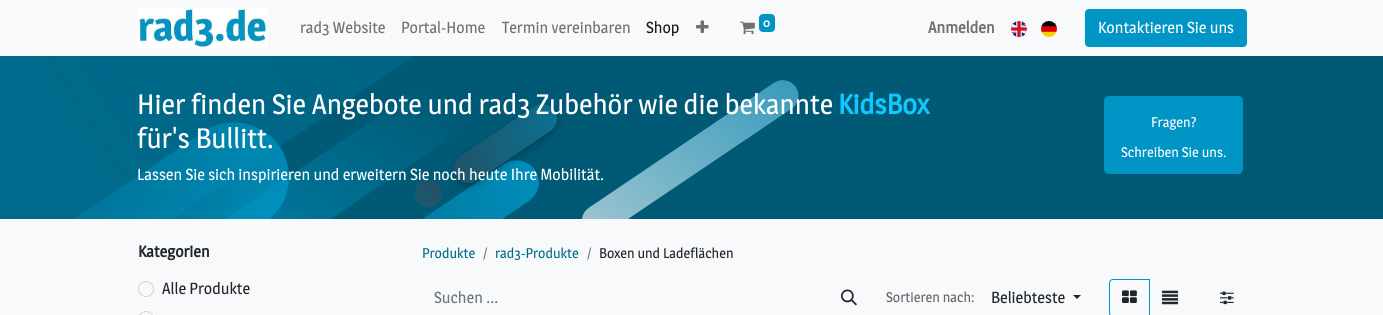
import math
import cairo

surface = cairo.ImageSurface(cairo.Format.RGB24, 1383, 315)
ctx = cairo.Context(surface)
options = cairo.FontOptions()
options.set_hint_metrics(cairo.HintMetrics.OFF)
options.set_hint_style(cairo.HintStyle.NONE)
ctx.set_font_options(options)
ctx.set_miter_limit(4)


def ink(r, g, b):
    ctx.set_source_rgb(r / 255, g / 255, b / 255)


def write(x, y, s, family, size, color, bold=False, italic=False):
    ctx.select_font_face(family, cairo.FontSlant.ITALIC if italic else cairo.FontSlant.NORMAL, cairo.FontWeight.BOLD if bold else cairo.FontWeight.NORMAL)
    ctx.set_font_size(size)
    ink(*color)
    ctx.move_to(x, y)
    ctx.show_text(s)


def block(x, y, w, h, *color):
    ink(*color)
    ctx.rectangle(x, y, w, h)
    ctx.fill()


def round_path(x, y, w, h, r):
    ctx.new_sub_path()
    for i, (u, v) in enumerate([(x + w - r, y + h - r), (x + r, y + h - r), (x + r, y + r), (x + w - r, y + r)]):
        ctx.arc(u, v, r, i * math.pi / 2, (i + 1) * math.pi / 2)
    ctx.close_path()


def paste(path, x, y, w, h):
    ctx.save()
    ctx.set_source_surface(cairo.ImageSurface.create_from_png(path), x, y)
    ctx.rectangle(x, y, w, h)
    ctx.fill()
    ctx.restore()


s1 = dict(family="Magra", size=16, color=(112, 112, 113))
s2 = dict(family="Magra", size=16, color=(25, 25, 25))
s3 = dict(family="Magra", size=12, color=(255, 255, 255), bold=True)
s4 = dict(family="Magra", size=16, color=(112, 112, 113), bold=True)
s5 = dict(family="Magra", size=16, color=(255, 255, 255))
s6 = dict(family="Magra", size=28, color=(255, 255, 255))
s7 = dict(family="Magra", size=28, color=(18, 198, 255), bold=True)
s8 = dict(family="Magra", size=14, color=(255, 255, 255))
s9 = dict(family="Magra", size=16, color=(33, 37, 41), bold=True)
s10 = dict(family="Magra", size=16, color=(33, 37, 41))
s11 = dict(family="Magra", size=14, color=(0, 106, 140))
s12 = dict(family="Magra", size=14, color=(108, 117, 125))
s13 = dict(family="Magra", size=14, color=(33, 37, 41))
s14 = dict(family="Magra", size=16, color=(108, 117, 125))
s15 = dict(family="Magra", size=14, color=(98, 101, 104))

ink(248, 249, 250)
ctx.paint()
paste("pic1.png", 137, 8, 131, 40)
write(300, 33, "rad3 Website", **s1)
write(401, 33, "Portal-Home", **s1)
write(502, 33, "Termin vereinbaren", **s1)
write(646, 33, "Shop", **s2)
paste("pic2.png", 696, 20, 13, 13)
paste("pic3.png", 740, 21, 15, 14)
ink(0, 149, 196)
round_path(759, 14, 16, 18, 4)
ctx.fill()
write(763, 27, "0", **s3)
write(928, 33, "Anmelden", **s4)
paste("pic4.png", 1011, 21, 16, 16)
paste("pic5.png", 1041, 21, 16, 16)
ink(0, 149, 196)
round_path(1085.5, 9.5, 161, 37, 3.5)
ctx.fill_preserve()
ctx.set_line_width(1)
ctx.stroke()
write(1098, 33, "Kontaktieren Sie uns", **s5)
block(0, 56, 1383, 163, 0, 89, 117)
paste("pic6.png", 0, 56, 799, 163)
write(137, 114, "Hier finden Sie Angebote und rad3 Zubehör wie die bekannte", **s6)
write(838, 114, "KidsBox", **s7)
write(137, 148, "für's Bullitt.", **s6)
write(137, 180, "Lassen Sie sich inspirieren und erweitern Sie noch heute Ihre Mobilität.", **s5)
ink(0, 149, 196)
round_path(1104.5, 96.5, 138, 77, 4.5)
ctx.fill_preserve()
ctx.stroke()
write(1151, 127, "Fragen?", **s8)
write(1121, 157, "Schreiben Sie uns.", **s8)
write(138, 257, "Kategorien", **s9)
ctx.new_path()
ctx.arc(146, 289, 7.5, 0, 2 * math.pi)
ink(206, 212, 218)
ctx.stroke()
write(162, 294, "Alle Produkte", **s10)
round_path(138.5, 311.5, 15, 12, 7.5)
ink(206, 212, 218)
ctx.stroke()
write(422, 258, "Produkte", **s11)
write(483, 258, "/", **s12)
write(495, 258, "rad3-Produkte", **s11)
write(587, 258, "/", **s12)
write(599, 258, "Boxen und Ladeflächen", **s13)
write(434, 303, "Suchen ...", **s14)
paste("pic7.png", 841, 289, 16, 17)
write(886, 302, "Sortieren nach:", **s15)
write(991, 303, "Beliebteste", **s10)
ctx.new_path()
ctx.move_to(1073, 295)
ctx.line_to(1081, 295)
ctx.line_to(1077, 299)
ctx.close_path()
ctx.fill()
ctx.new_path()
ctx.move_to(1113, 279.5)
ctx.line_to(1149.5, 279.5)
ctx.line_to(1149.5, 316.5)
ctx.line_to(1113, 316.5)
ctx.curve_to(1111, 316.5, 1109.5, 315, 1109.5, 313)
ctx.line_to(1109.5, 283)
ctx.curve_to(1109.5, 281, 1111, 279.5, 1113, 279.5)
ctx.close_path()
ink(0, 149, 196)
ctx.stroke()
paste("pic8.png", 1122, 290, 15, 13)
paste("pic9.png", 1162, 290, 16, 15)
paste("pic10.png", 1220, 291, 14, 14)
surface.write_to_png("screenshot.png")
